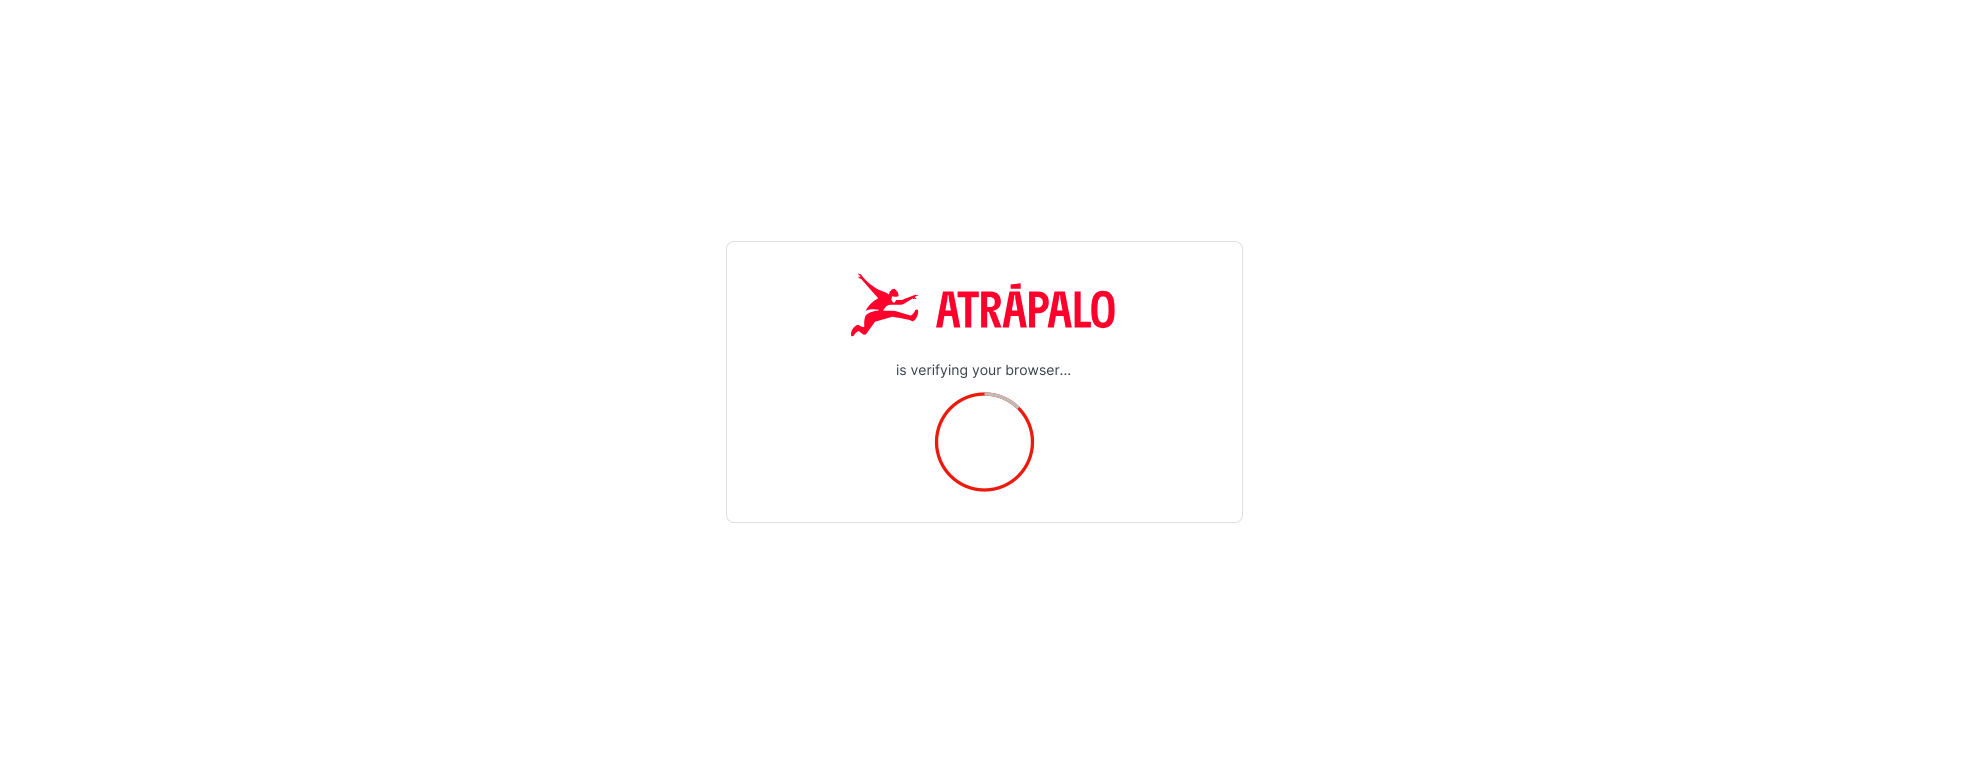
import math
import cairo

surface = cairo.ImageSurface(cairo.Format.RGB24, 1968, 763)
ctx = cairo.Context(surface)
options = cairo.FontOptions()
options.set_hint_metrics(cairo.HintMetrics.OFF)
options.set_hint_style(cairo.HintStyle.NONE)
ctx.set_font_options(options)
ctx.set_miter_limit(4)


def ink(r, g, b):
    ctx.set_source_rgb(r / 255, g / 255, b / 255)


def write(x, y, s, family, size, color, bold=False, italic=False):
    ctx.select_font_face(family, cairo.FontSlant.ITALIC if italic else cairo.FontSlant.NORMAL, cairo.FontWeight.BOLD if bold else cairo.FontWeight.NORMAL)
    ctx.set_font_size(size)
    ink(*color)
    ctx.move_to(x, y)
    ctx.show_text(s)


def round_path(x, y, w, h, r):
    ctx.new_sub_path()
    for i, (u, v) in enumerate([(x + w - r, y + h - r), (x + r, y + h - r), (x + r, y + r), (x + w - r, y + r)]):
        ctx.arc(u, v, r, i * math.pi / 2, (i + 1) * math.pi / 2)
    ctx.close_path()


def paste(path, x, y, w, h):
    ctx.save()
    ctx.set_source_surface(cairo.ImageSurface.create_from_png(path), x, y)
    ctx.rectangle(x, y, w, h)
    ctx.fill()
    ctx.restore()


s1 = dict(family="Inter", size=14, color=(58, 66, 74))

ink(255, 255, 255)
ctx.paint()
round_path(726.5, 241.5, 516, 281, 7.5)
ink(220, 224, 228)
ctx.set_line_width(1)
ctx.stroke()
paste("pic1.png", 851, 273, 264, 64)
write(896, 375, "is verifying your browser...", **s1)
ctx.new_path()
ctx.move_to(936.5, 442)
ctx.curve_to(936.5, 415.5, 958, 394, 984.5, 394)
ctx.curve_to(1011, 394, 1032.5, 415.5, 1032.5, 442)
ctx.curve_to(1032.5, 468.5, 1011, 490, 984.5, 490)
ctx.curve_to(958, 490, 936.5, 468.5, 936.5, 442)
ctx.close_path()
ink(235, 26, 12)
ctx.set_line_width(3.3)
ctx.stroke()
ctx.new_path()
ctx.move_to(1018.5, 408)
ctx.curve_to(1009.5, 399, 997, 394, 984.5, 394)
ink(194, 186, 181)
ctx.stroke()
surface.write_to_png("screenshot.png")
